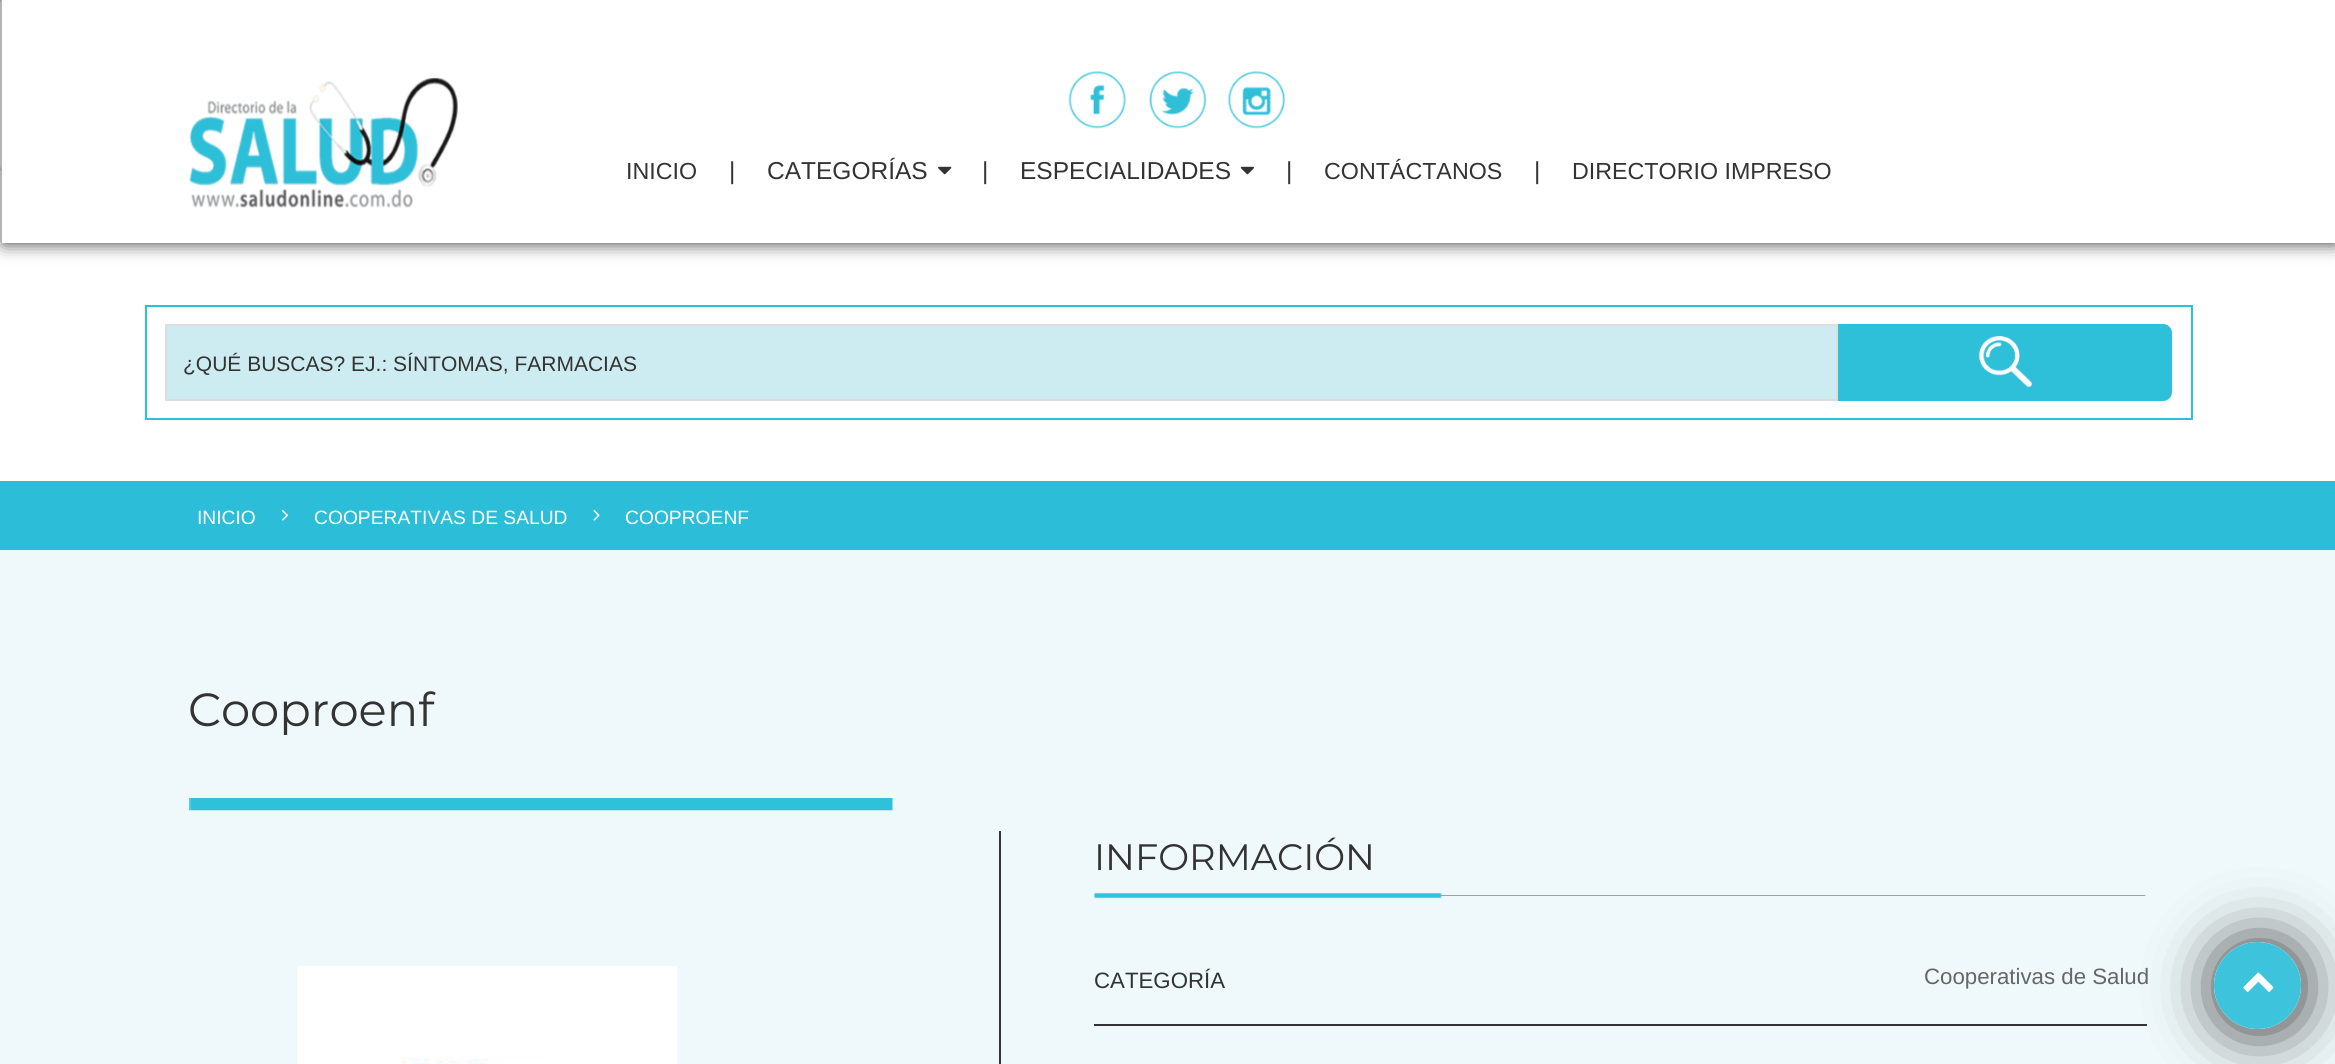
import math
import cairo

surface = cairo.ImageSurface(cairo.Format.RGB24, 2335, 1064)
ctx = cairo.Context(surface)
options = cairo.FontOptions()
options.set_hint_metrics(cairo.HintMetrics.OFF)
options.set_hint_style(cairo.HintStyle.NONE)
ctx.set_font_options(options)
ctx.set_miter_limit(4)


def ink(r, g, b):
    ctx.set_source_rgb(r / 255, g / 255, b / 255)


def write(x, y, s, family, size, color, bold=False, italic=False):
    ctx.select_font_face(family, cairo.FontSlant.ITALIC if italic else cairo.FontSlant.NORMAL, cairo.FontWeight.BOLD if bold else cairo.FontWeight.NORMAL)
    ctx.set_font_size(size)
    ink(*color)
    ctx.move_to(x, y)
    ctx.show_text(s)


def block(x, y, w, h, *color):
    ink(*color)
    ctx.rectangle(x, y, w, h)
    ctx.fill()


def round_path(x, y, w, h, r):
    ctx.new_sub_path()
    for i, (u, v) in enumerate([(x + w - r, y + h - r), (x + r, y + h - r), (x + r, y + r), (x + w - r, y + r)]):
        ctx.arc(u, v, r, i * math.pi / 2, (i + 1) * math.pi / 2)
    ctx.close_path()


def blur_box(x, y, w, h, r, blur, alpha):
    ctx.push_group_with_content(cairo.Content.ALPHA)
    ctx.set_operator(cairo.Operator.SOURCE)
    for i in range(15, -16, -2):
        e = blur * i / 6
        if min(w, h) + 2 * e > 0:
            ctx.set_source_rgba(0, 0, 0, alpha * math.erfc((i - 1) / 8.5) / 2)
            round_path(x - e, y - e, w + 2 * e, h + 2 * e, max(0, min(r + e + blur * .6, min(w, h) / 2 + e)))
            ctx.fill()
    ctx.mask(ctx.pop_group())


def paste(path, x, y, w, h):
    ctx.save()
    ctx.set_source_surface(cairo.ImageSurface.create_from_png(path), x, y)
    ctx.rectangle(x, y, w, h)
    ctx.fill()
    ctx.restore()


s1 = dict(family="Liberation Sans", size=23.25, color=(51, 51, 51))
s2 = dict(family="Liberation Sans", size=24.5, color=(51, 51, 51))
s3 = dict(family="Liberation Sans", size=21, color=(51, 51, 51))
s4 = dict(family="Liberation Sans", size=19.25, color=(255, 255, 255))
s5 = dict(family="Montserrat", size=46.5, color=(51, 51, 51))
s6 = dict(family="Montserrat", size=36.75, color=(51, 51, 51))
s7 = dict(family="Liberation Sans", size=22.25, color=(51, 51, 51))
s8 = dict(family="Liberation Sans", size=22.25, color=(102, 102, 102))

ink(255, 255, 255)
ctx.paint()
ctx.save()
ctx.set_fill_rule(cairo.FillRule.EVEN_ODD)
ctx.new_path()
ctx.move_to(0, 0)
ctx.line_to(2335, 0)
ctx.line_to(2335, 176)
ctx.line_to(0, 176)
ctx.close_path()
ctx.move_to(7, -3)
ctx.line_to(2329, -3)
ctx.curve_to(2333, -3, 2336, 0, 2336, 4)
ctx.line_to(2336, 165)
ctx.curve_to(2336, 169, 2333, 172, 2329, 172)
ctx.line_to(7, 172)
ctx.curve_to(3, 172, 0, 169, 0, 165)
ctx.line_to(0, 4)
ctx.curve_to(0, 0, 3, -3, 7, -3)
ctx.close_path()
ctx.clip()
ink(51, 51, 51)
blur_box(0, -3, 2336, 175, 7, 1, 1)
ctx.restore()
ink(51, 51, 51)
blur_box(4, -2, 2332, 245, 0, 9, 1)
block(2, 0, 2333, 243, 255, 255, 255)
paste("pic1.png", 189, 77, 269, 131)
paste("pic2.png", 1068, 71, 58, 58)
paste("pic3.png", 1149, 71, 57, 58)
paste("pic4.png", 1227, 71, 58, 58)
write(626, 179, "INICIO", **s1)
write(729, 179, "|", **s2)
write(767, 179, "CATEGORÍAS", **s2)
paste("pic5.png", 938, 166, 14, 9)
write(982, 179, "|", **s2)
write(1020, 179, "ESPECIALIDADES", **s2)
paste("pic6.png", 1240, 166, 14, 9)
write(1286, 179, "|", **s2)
write(1324, 179, "CONTÁCTANOS", **s1)
write(1534, 179, "|", **s2)
write(1572, 179, "DIRECTORIO IMPRESO", **s1)
ctx.rectangle(146, 306, 2046, 113)
ink(46, 191, 217)
ctx.stroke()
ink(205, 236, 242)
ctx.rectangle(166, 325, 1671, 75)
ctx.fill_preserve()
ink(221, 221, 221)
ctx.stroke()
write(183, 371, "¿QUÉ BUSCAS? EJ.: SÍNTOMAS, FARMACIAS", **s3)
ink(46, 191, 217)
ctx.new_path()
ctx.move_to(1838, 324)
ctx.line_to(2163, 324)
ctx.curve_to(2168, 324, 2172, 328, 2172, 333)
ctx.line_to(2172, 392)
ctx.curve_to(2172, 397, 2168, 401, 2163, 401)
ctx.line_to(1838, 401)
ctx.close_path()
ctx.fill()
paste("pic7.png", 1979, 336, 53, 51)
block(0, 481, 2335, 69, 44, 190, 216)
write(197, 524, "INICIO", **s4)
paste("pic8.png", 281, 510, 8, 11)
write(314, 524, "COOPERATIVAS DE SALUD", **s4)
paste("pic9.png", 593, 510, 7, 11)
write(625, 524, "COOPROENF", **s4)
block(0, 550, 2335, 514, 239, 249, 251)
write(188, 726, "Cooproenf", **s5)
paste("pic10.png", 189, 798, 704, 13)
block(999, 831, 2, 233, 51, 51, 51)
paste("pic11.png", 297, 966, 381, 98)
write(1094, 870, "INFORMACIÓN", **s6)
paste("pic12.png", 1093, 892, 1053, 7)
block(1094, 1024, 1053, 2, 51, 51, 51)
write(1094, 988, "CATEGORÍA", **s7)
write(1924, 984, "Cooperativas de Salud", **s8)
ctx.save()
ctx.set_fill_rule(cairo.FillRule.EVEN_ODD)
ctx.new_path()
ctx.move_to(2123, 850)
ctx.line_to(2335, 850)
ctx.line_to(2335, 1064)
ctx.line_to(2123, 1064)
ctx.close_path()
ctx.move_to(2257.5, 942)
ctx.curve_to(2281.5, 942, 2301, 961.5, 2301, 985.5)
ctx.curve_to(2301, 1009.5, 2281.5, 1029, 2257.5, 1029)
ctx.curve_to(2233.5, 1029, 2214, 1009.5, 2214, 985.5)
ctx.curve_to(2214, 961.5, 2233.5, 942, 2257.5, 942)
ctx.close_path()
ctx.clip()
ink(51, 51, 51)
blur_box(2216, 943, 87, 88, 43.5, 30.5, 1)
ctx.restore()
ctx.set_source_rgba(0.173, 0.745, 0.847, 0.9)
ctx.arc(2257.5, 985.5, 43.5, 0, 2 * math.pi)
ctx.fill()
paste("pic13.png", 2243, 972, 31, 20)
surface.write_to_png("screenshot.png")
